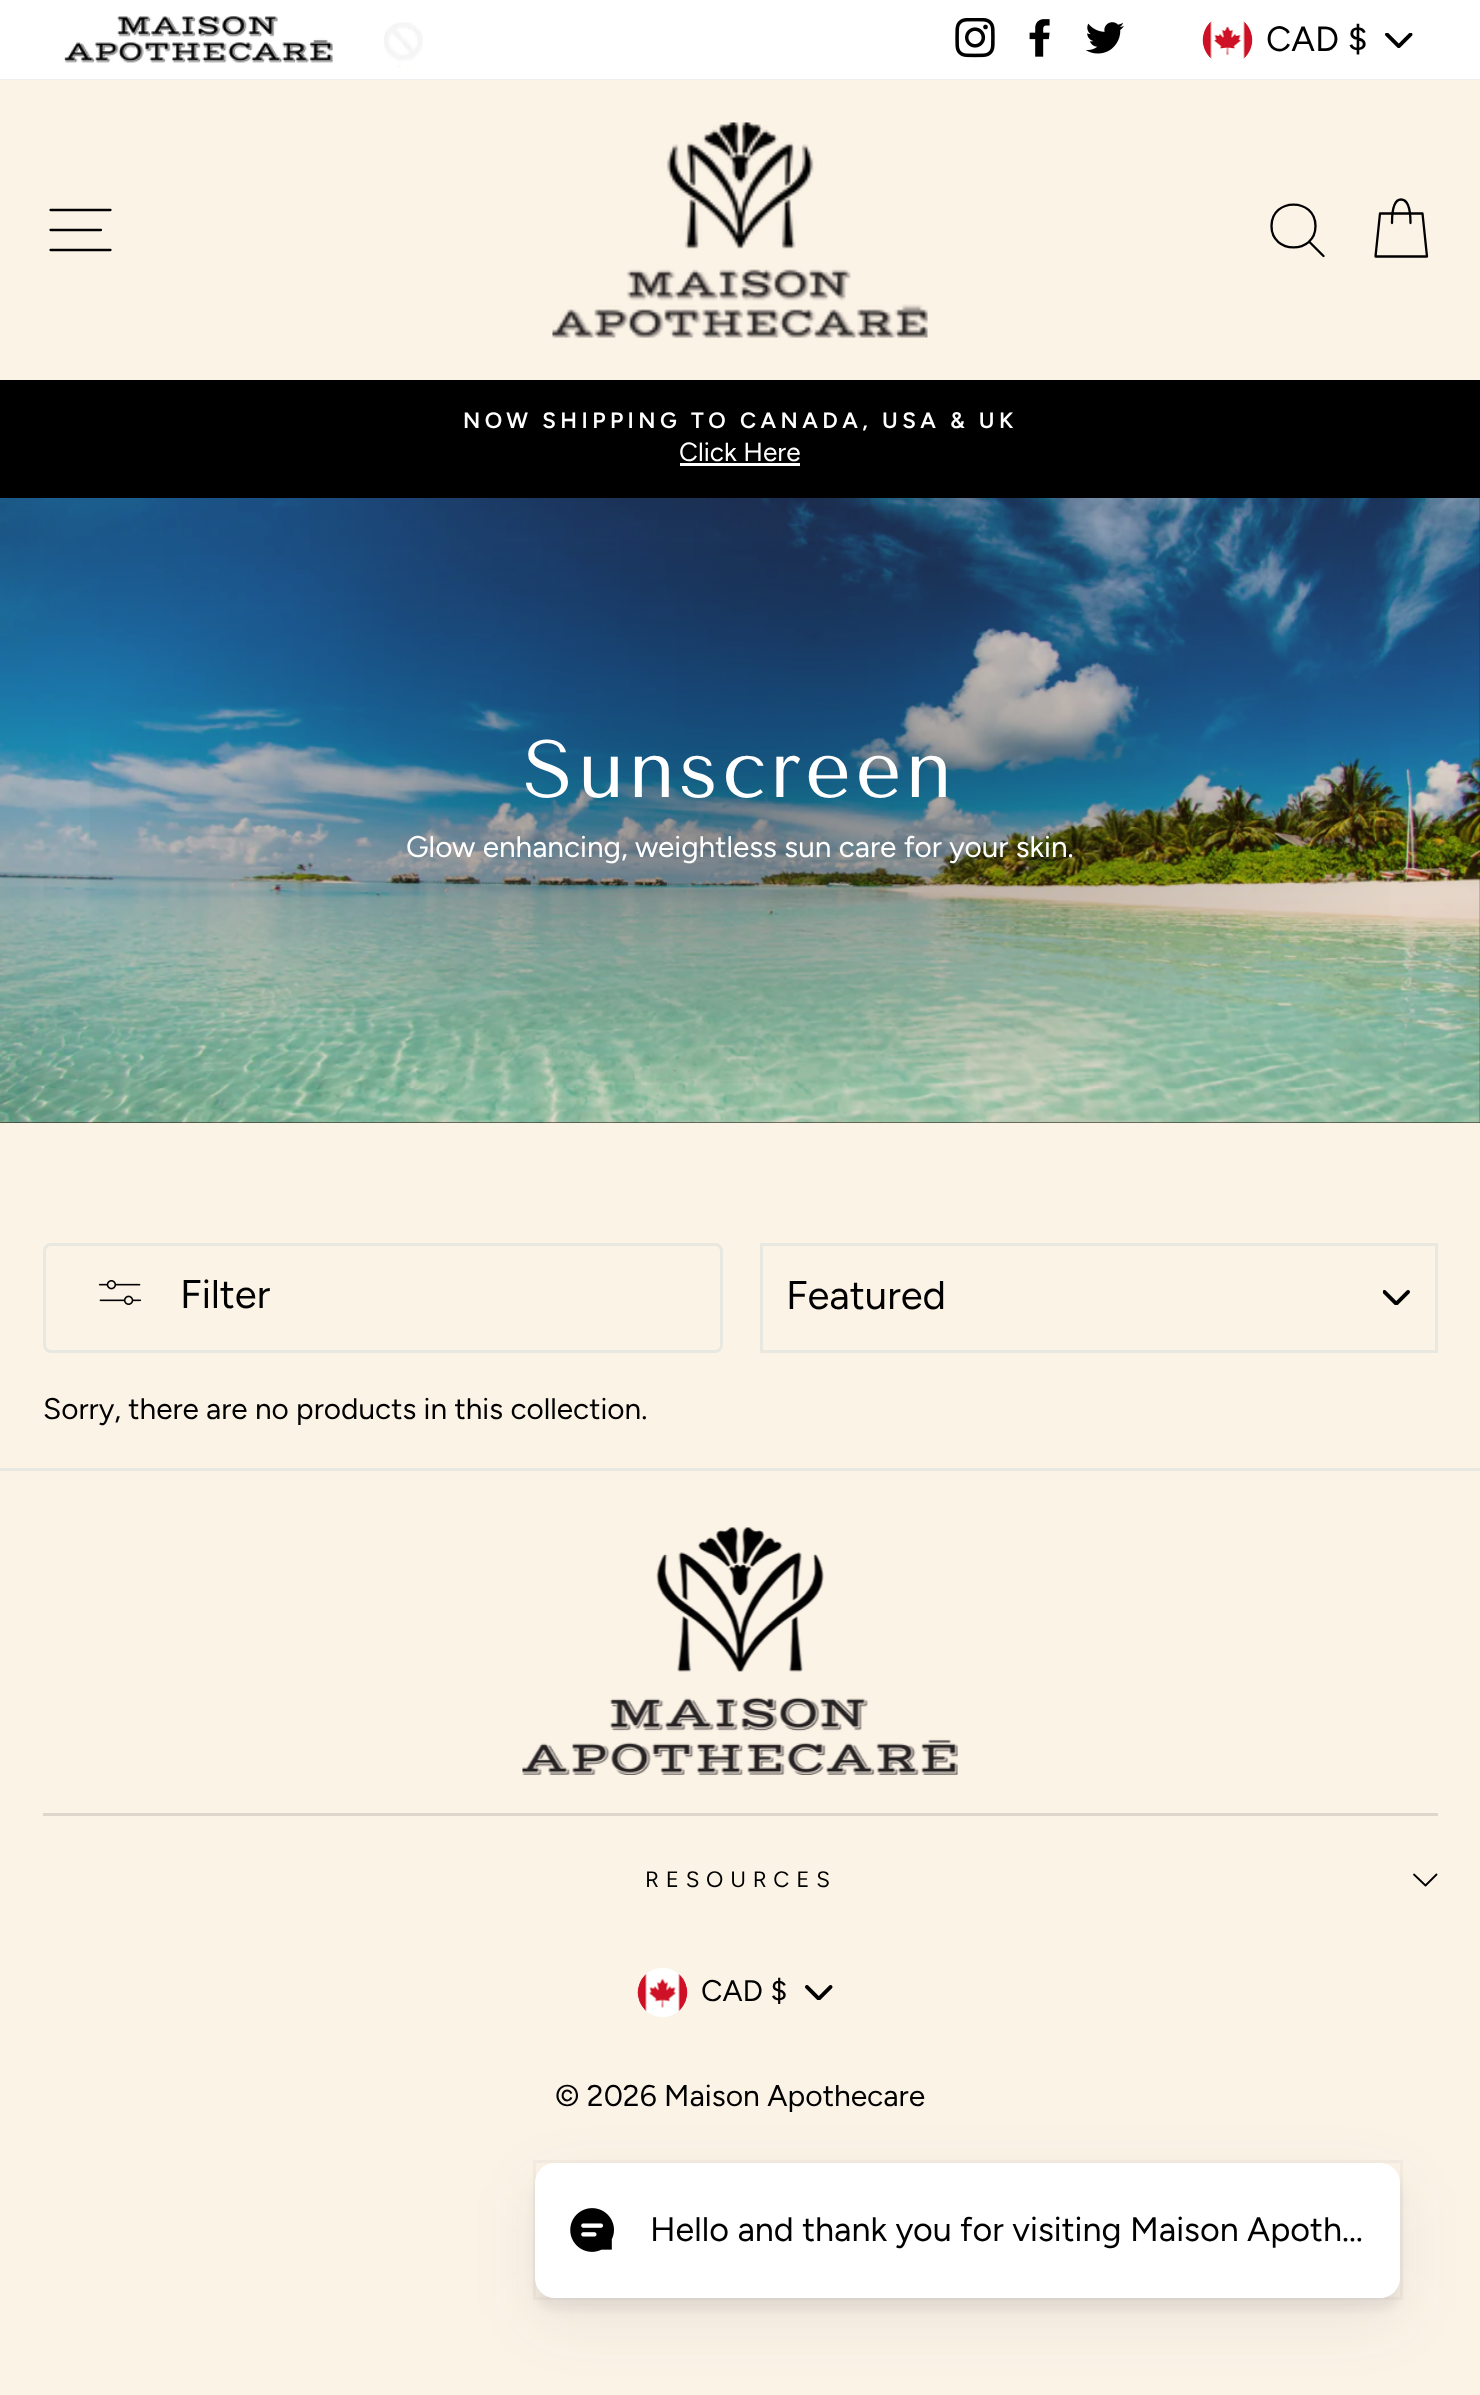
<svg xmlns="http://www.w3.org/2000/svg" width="1480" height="2395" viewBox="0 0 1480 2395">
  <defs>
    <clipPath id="clip1"><rect x="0" y="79" width="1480" height="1"/></clipPath>
    <radialGradient id="g1" gradientUnits="userSpaceOnUse" cx="0" cy="0" r="1" gradientTransform="matrix(1177 0 0 490 740 811)"><stop offset="0" stop-color="rgb(0,0,0)" stop-opacity="0.29"/><stop offset="0.6" stop-color="rgb(0,0,0)" stop-opacity="0"/></radialGradient>
  </defs>
  <rect width="100%" height="100%" fill="rgb(252,243,231)"/>
  <rect x="0" y="0" width="1480" height="80" fill="rgb(255,255,255)"/>
  <image x="63" y="16" width="270" height="47" href="pic1.png"/>
  <image x="384" y="22" width="39" height="46" href="pic2.png"/>
  <image x="955" y="18" width="40" height="40" href="pic3.png"/>
  <image x="1029" y="19" width="21" height="38" href="pic4.png"/>
  <image x="1085" y="22" width="39" height="32" href="pic5.png"/>
  <image x="1385" y="33" width="28" height="15" href="pic6.png"/>
  <image x="1202" y="21" width="51" height="38" href="pic7.png"/>
  <text x="1266" y="51" font-family="Figtree" font-size="35" fill="rgb(0,0,0)">CAD $</text>
  <g clip-path="url(#clip1)">
    <rect x="0" y="80" width="1480" height="300" fill="rgba(0,0,0,0.2)" filter="blur(1px)"/>
  </g>
  <path d="M50.5 210H110.5M50.5 230H101M50.5 250H110.5" fill="none" stroke="rgb(0,0,0)" stroke-width="2.3" stroke-linecap="round" stroke-linejoin="round"/>
  <image x="552" y="122" width="376" height="216" href="pic8.png"/>
  <path d="M1315.5 226C1315.5 254.5 1271.5 254.5 1271.5 226C1271.5 197.5 1315.5 197.5 1315.5 226ZM1323.5 256L1309 241.5" fill="none" stroke="rgb(0,0,0)" stroke-width="2.3" stroke-linecap="round" stroke-linejoin="round"/>
  <path d="M1392 223C1392 204.5 1396 199.5 1401 199.5C1406.5 199.5 1410.5 204.5 1410.5 223M1380 213.5H1422.5L1427 256.5H1375.5Z" fill="none" stroke="rgb(0,0,0)" stroke-width="2.3" stroke-linecap="round" stroke-linejoin="round"/>
  <rect x="0" y="380" width="1480" height="118" fill="rgb(0,0,0)"/>
  <text x="463" y="428" font-family="Figtree" font-size="22.3" font-weight="600" letter-spacing="4.45" fill="rgb(255,255,255)">NOW SHIPPING TO CANADA, USA &amp; UK</text>
  <text x="679" y="461" font-family="Figtree" font-size="26.25" fill="rgb(255,255,255)">Click Here</text>
  <rect x="680" y="463" width="120" height="3" fill="rgb(255,255,255)"/>
  <rect x="0" y="498" width="1480" height="625" fill="rgb(39,26,16)"/>
  <image x="0" y="498" width="1480" height="625" href="pic9.png"/>
  <rect x="90" y="541" width="1300" height="542" fill="url(#g1)"/>
  <text x="523" y="797" font-family="Tenor Sans" font-size="80.75" letter-spacing="4" fill="rgb(255,255,255)">Sunscreen</text>
  <text x="406" y="857" font-family="Figtree" font-size="29.75" fill="rgb(255,255,255)">Glow enhancing, weightless sun care for your skin.</text>
  <rect x="44.5" y="1244.5" width="677" height="107" rx="6.5" fill="none" stroke="rgb(232,232,225)" stroke-width="3"/>
  <image x="98" y="1280" width="44" height="25" href="pic10.png"/>
  <text x="180" y="1308" font-family="Figtree" font-size="40" fill="rgb(0,0,0)">Filter</text>
  <image x="1383" y="1290" width="27" height="15" href="pic11.png"/>
  <rect x="761.5" y="1244.5" width="675" height="107" fill="none" stroke="rgb(232,232,225)" stroke-width="3"/>
  <text x="786" y="1309" font-family="Figtree" font-size="40" fill="rgb(0,0,0)">Featured</text>
  <text x="43" y="1419" font-family="Figtree" font-size="29.75" fill="rgb(0,0,0)">Sorry, there are no products in this collection.</text>
  <rect x="0" y="1468" width="1480" height="3" fill="rgb(232,232,225)"/>
  <image x="522" y="1527" width="436" height="248" href="pic12.png"/>
  <rect x="43" y="1813" width="1395" height="3" fill="rgb(222,214,203)"/>
  <text x="645" y="1887" font-family="Figtree" font-size="22.3" letter-spacing="6.75" fill="rgb(0,0,0)">RESOURCES</text>
  <path d="M1414 1874.5L1425.5 1885.5L1436.5 1874.5" fill="none" stroke="rgb(0,0,0)" stroke-width="1.8" stroke-linecap="round" stroke-linejoin="round"/>
  <image x="805" y="1985" width="28" height="15" href="pic13.png"/>
  <image x="637" y="1967" width="51" height="51" href="pic14.png"/>
  <text x="701" y="2001" font-family="Figtree" font-size="29.75" fill="rgb(0,0,0)">CAD $</text>
  <text x="555" y="2106" font-family="Figtree" font-size="30" fill="rgb(0,0,0)">© 2026 Maison Apothecare</text>
  <rect x="535" y="2183" width="865" height="137" rx="20" fill="rgba(55,63,71,0.08)" filter="blur(31.5px)"/>
  <rect x="535" y="2173" width="865" height="137" rx="20" fill="rgba(55,63,71,0.08)" filter="blur(5px)"/>
  <rect x="534.5" y="2161.5" width="867" height="137" fill="none" stroke="rgba(55,63,71,0.04)" stroke-width="3"/>
  <rect x="535" y="2163" width="865" height="135" rx="20" fill="rgb(255,255,255)"/>
  <image x="570" y="2208" width="44" height="44" href="pic15.png"/>
  <text x="650" y="2241" font-family="Figtree" font-size="34.1" fill="rgb(0,0,0)">Hello and thank you for visiting Maison Apoth…</text>
</svg>
